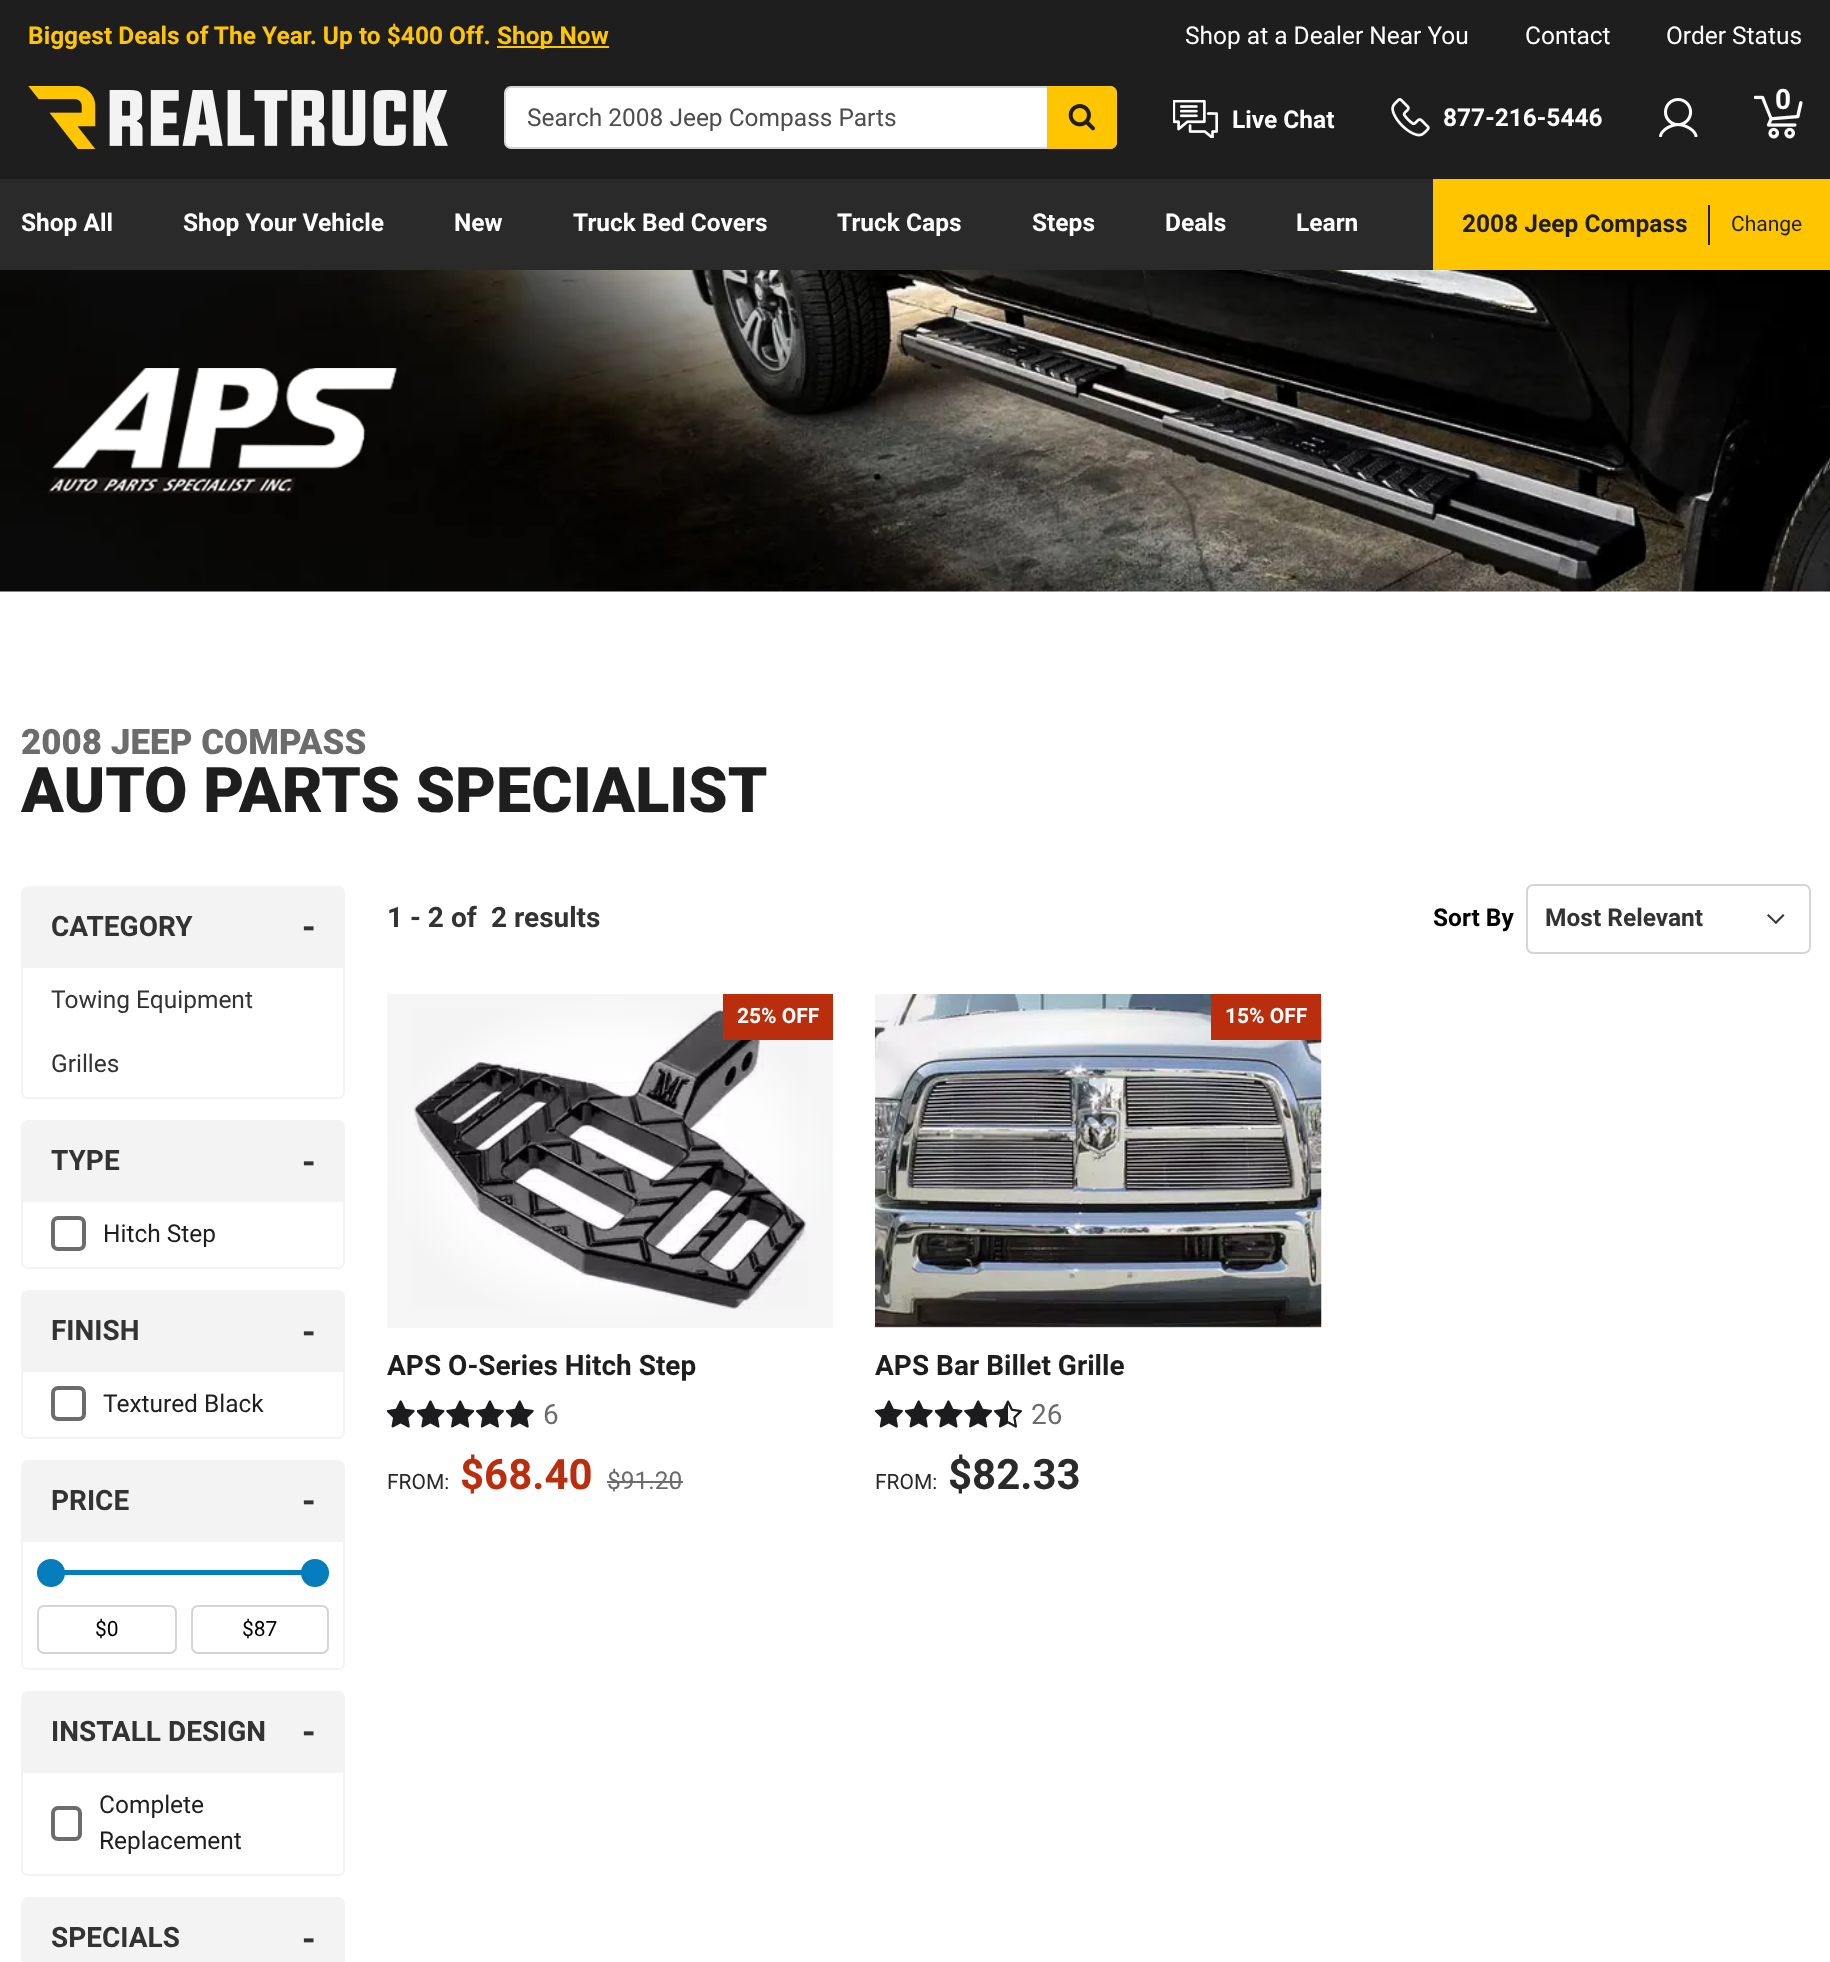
<svg xmlns="http://www.w3.org/2000/svg" width="1830" height="1962" viewBox="0 0 1830 1962">
  <defs>
    <radialGradient id="g1" gradientUnits="userSpaceOnUse" cx="0" cy="0" r="1" gradientTransform="matrix(223 0 0 167 610 1161)"><stop offset="0.5" stop-color="rgb(55,62,62)" stop-opacity="0"/><stop offset="0.74" stop-color="rgb(55,62,62)" stop-opacity="0.01"/><stop offset="1" stop-color="rgb(55,62,62)" stop-opacity="0.05"/></radialGradient>
  </defs>
  <rect width="100%" height="100%" fill="rgb(255,255,255)"/>
  <rect x="0" y="0" width="1830" height="179" fill="rgb(30,30,30)"/>
  <text x="28" y="44" font-family="Roboto" font-size="24.5" font-weight="bold" fill="rgb(255,198,0)">Biggest Deals of The Year. Up to $400 Off.</text>
  <rect x="497" y="46" width="112" height="2" fill="rgb(255,198,0)"/>
  <text x="497" y="44" font-family="Roboto" font-size="24.5" font-weight="bold" fill="rgb(255,198,0)">Shop Now</text>
  <g font-family="Roboto" font-size="24.5" fill="rgb(255,255,255)">
    <text x="1185" y="44">Shop at a Dealer Near You</text>
    <text x="1525" y="44">Contact</text>
    <text x="1666" y="44">Order Status</text>
  </g>
  <image x="28" y="86" width="420" height="63" href="pic1.png"/>
  <rect x="505" y="87" width="611" height="61" rx="6" fill="rgb(255,255,255)" stroke="rgb(213,213,213)" stroke-width="2"/>
  <text x="527" y="126" font-family="Roboto" font-size="24.5" fill="rgb(77,77,77)">Search 2008 Jeep Compass Parts</text>
  <path d="M1048 87H1110C1113.5 87 1116 89.5 1116 93V142C1116 145.5 1113.5 148 1110 148H1048Z" fill="rgb(255,198,0)" stroke="rgb(255,198,0)" stroke-width="2"/>
  <image x="1068" y="104" width="27" height="27" href="pic2.png"/>
  <image x="1173" y="100" width="45" height="38" href="pic3.png"/>
  <text x="1232" y="128" font-family="Roboto" font-size="24.5" font-weight="bold" fill="rgb(255,255,255)">Live Chat</text>
  <image x="1391" y="98" width="39" height="39" href="pic4.png"/>
  <text x="1443" y="126" font-family="Roboto" font-size="24.5" font-weight="bold" fill="rgb(255,255,255)">877-216-5446</text>
  <image x="1659" y="98" width="39" height="39" href="pic5.png"/>
  <image x="1754" y="95" width="49" height="44" href="pic6.png"/>
  <text x="1775" y="109" font-family="Roboto" font-size="28" font-weight="bold" fill="rgb(255,255,255)">0</text>
  <rect x="0" y="179" width="1433" height="91" fill="rgb(42,42,42)"/>
  <g font-family="Roboto" font-size="24.5" font-weight="bold" fill="rgb(255,255,255)">
    <text x="21" y="231">Shop All</text>
    <text x="183" y="231">Shop Your Vehicle</text>
    <text x="454" y="231">New</text>
    <text x="573" y="231">Truck Bed Covers</text>
    <text x="837" y="231">Truck Caps</text>
    <text x="1032" y="231">Steps</text>
    <text x="1165" y="231">Deals</text>
    <text x="1296" y="231">Learn</text>
  </g>
  <rect x="1433" y="179" width="397" height="91" fill="rgb(255,198,0)"/>
  <text x="1462" y="232" font-family="Roboto" font-size="24.5" font-weight="bold" fill="rgb(30,30,30)">2008 Jeep Compass</text>
  <rect x="1708" y="205" width="2" height="40" fill="rgb(30,30,30)"/>
  <text x="1731" y="231" font-family="Roboto" font-size="21" fill="rgb(30,30,30)">Change</text>
  <image x="0" y="270" width="1830" height="322" href="pic7.png"/>
  <image x="47" y="368" width="350" height="126" href="pic8.png"/>
  <text x="21" y="754" font-family="Roboto" font-size="35" font-weight="900" fill="rgb(108,108,108)">2008 JEEP COMPASS</text>
  <text x="21" y="812" font-family="Roboto" font-size="63" font-weight="900" fill="rgb(30,30,30)">AUTO PARTS SPECIALIST</text>
  <rect x="22" y="887" width="322" height="211" rx="6" fill="none" stroke="rgb(243,243,243)" stroke-width="2"/>
  <path d="M28 887H338C341 887 343 889 343 892V968H23V892C23 889 25 887 28 887Z" fill="rgb(243,243,243)"/>
  <text x="51" y="936" font-family="Roboto" font-size="28" font-weight="bold" fill="rgb(51,51,51)">CATEGORY</text>
  <text x="302" y="939" font-family="Roboto" font-size="35" font-weight="bold" fill="rgb(51,51,51)">-</text>
  <path d="M23 968H343V1092C343 1095 341 1097 338 1097H28C25 1097 23 1095 23 1092Z" fill="rgb(255,255,255)"/>
  <g font-family="Roboto" font-size="24.5" fill="rgb(51,51,51)">
    <text x="51" y="1008">Towing Equipment</text>
    <text x="51" y="1072">Grilles</text>
  </g>
  <rect x="22" y="1121" width="322" height="147" rx="6" fill="none" stroke="rgb(243,243,243)" stroke-width="2"/>
  <path d="M28 1122H338C341 1122 343 1124 343 1127V1202H23V1127C23 1124 25 1122 28 1122Z" fill="rgb(243,243,243)"/>
  <text x="51" y="1170" font-family="Roboto" font-size="28" font-weight="bold" fill="rgb(51,51,51)">TYPE</text>
  <text x="302" y="1174" font-family="Roboto" font-size="35" font-weight="bold" fill="rgb(51,51,51)">-</text>
  <path d="M23 1202H343V1262C343 1265 341 1267 338 1267H28C25 1267 23 1265 23 1262Z" fill="rgb(255,255,255)"/>
  <rect x="53" y="1218" width="31" height="31" rx="5" fill="none" stroke="rgb(108,108,108)" stroke-width="4"/>
  <text x="103" y="1242" font-family="Roboto" font-size="24.5" fill="rgb(30,30,30)">Hitch Step</text>
  <rect x="22" y="1291" width="322" height="147" rx="6" fill="none" stroke="rgb(243,243,243)" stroke-width="2"/>
  <path d="M28 1292H338C341 1292 343 1294 343 1297V1372H23V1297C23 1294 25 1292 28 1292Z" fill="rgb(243,243,243)"/>
  <text x="51" y="1340" font-family="Roboto" font-size="28" font-weight="bold" fill="rgb(51,51,51)">FINISH</text>
  <text x="302" y="1344" font-family="Roboto" font-size="35" font-weight="bold" fill="rgb(51,51,51)">-</text>
  <path d="M23 1372H343V1432C343 1435 341 1437 338 1437H28C25 1437 23 1435 23 1432Z" fill="rgb(255,255,255)"/>
  <rect x="53" y="1388" width="31" height="31" rx="5" fill="none" stroke="rgb(108,108,108)" stroke-width="4"/>
  <text x="103" y="1412" font-family="Roboto" font-size="24.5" fill="rgb(30,30,30)">Textured Black</text>
  <rect x="22" y="1461" width="322" height="208" rx="6" fill="none" stroke="rgb(243,243,243)" stroke-width="2"/>
  <path d="M28 1461H338C341 1461 343 1463 343 1466V1542H23V1466C23 1463 25 1461 28 1461Z" fill="rgb(243,243,243)"/>
  <text x="51" y="1510" font-family="Roboto" font-size="28" font-weight="bold" fill="rgb(51,51,51)">PRICE</text>
  <text x="302" y="1513" font-family="Roboto" font-size="35" font-weight="bold" fill="rgb(51,51,51)">-</text>
  <path d="M23 1542H343V1663C343 1666 341 1668 338 1668H28C25 1668 23 1666 23 1663Z" fill="rgb(255,255,255)"/>
  <rect x="37" y="1570" width="292" height="5" rx="2.5" fill="rgb(5,125,188)"/>
  <circle cx="51" cy="1573" r="13" fill="rgb(5,125,188)" stroke="rgb(5,125,188)" stroke-width="2"/>
  <circle cx="315" cy="1573" r="13" fill="rgb(5,125,188)" stroke="rgb(5,125,188)" stroke-width="2"/>
  <rect x="38" y="1606" width="138" height="47" rx="6" fill="none" stroke="rgb(213,213,213)" stroke-width="2"/>
  <text x="95" y="1636" font-family="Roboto" font-size="21" fill="rgb(0,0,0)">$0</text>
  <rect x="192" y="1606" width="136" height="47" rx="6" fill="none" stroke="rgb(213,213,213)" stroke-width="2"/>
  <text x="242" y="1636" font-family="Roboto" font-size="21" fill="rgb(0,0,0)">$87</text>
  <rect x="22" y="1692" width="322" height="183" rx="6" fill="none" stroke="rgb(243,243,243)" stroke-width="2"/>
  <path d="M28 1692H338C341 1692 343 1694 343 1697V1773H23V1697C23 1694 25 1692 28 1692Z" fill="rgb(243,243,243)"/>
  <text x="51" y="1741" font-family="Roboto" font-size="28" font-weight="bold" fill="rgb(51,51,51)">INSTALL DESIGN</text>
  <text x="302" y="1744" font-family="Roboto" font-size="35" font-weight="bold" fill="rgb(51,51,51)">-</text>
  <path d="M23 1773H343V1869C343 1872 341 1874 338 1874H28C25 1874 23 1872 23 1869Z" fill="rgb(255,255,255)"/>
  <rect x="53" y="1808" width="27" height="31" rx="5" fill="none" stroke="rgb(108,108,108)" stroke-width="4"/>
  <g font-family="Roboto" font-size="24.5" fill="rgb(30,30,30)">
    <text>
      <tspan x="99" y="1813">Complete</tspan>
      <tspan x="99" y="1849">Replacement</tspan>
    </text>
  </g>
  <rect x="22" y="1898" width="322" height="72" rx="6" fill="none" stroke="rgb(243,243,243)" stroke-width="2"/>
  <path d="M28 1899H338C341 1899 343 1901 343 1904V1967H23V1904C23 1901 25 1899 28 1899Z" fill="rgb(243,243,243)"/>
  <text x="51" y="1947" font-family="Roboto" font-size="28" font-weight="bold" fill="rgb(51,51,51)">SPECIALS</text>
  <text x="302" y="1951" font-family="Roboto" font-size="35" font-weight="bold" fill="rgb(51,51,51)">-</text>
  <g font-family="Roboto" font-size="28" font-weight="bold" fill="rgb(51,51,51)">
    <text x="387" y="927">1 - 2 of</text>
    <text x="491" y="927">2 results</text>
  </g>
  <text x="1433" y="926" font-family="Roboto" font-size="24.5" font-weight="bold" fill="rgb(0,0,0)">Sort By</text>
  <rect x="1527" y="885" width="283" height="68" rx="6" fill="none" stroke="rgb(213,213,213)" stroke-width="2"/>
  <text x="1545" y="926" font-family="Roboto" font-size="24.5" font-weight="bold" fill="rgb(51,51,51)">Most Relevant</text>
  <path d="M1774.5 922.5L1783 914L1784.5 915.5L1776 924Z" fill="rgb(51,51,51)"/>
  <path d="M1767 915.5L1768.5 914L1777 922.5L1776 924Z" fill="rgb(51,51,51)"/>
  <image x="413" y="1009" width="394" height="300" href="pic9.png"/>
  <rect x="387" y="994" width="446" height="334" fill="url(#g1)"/>
  <rect x="723" y="994" width="110" height="46" fill="rgb(186,45,13)"/>
  <text x="737" y="1023" font-family="Roboto" font-size="21" font-weight="bold" fill="rgb(255,255,255)">25% OFF</text>
  <text x="387" y="1375" font-family="Roboto" font-size="28" font-weight="bold" fill="rgb(30,30,30)">APS O-Series Hitch Step</text>
  <image x="387" y="1400" width="28" height="28" href="pic10.png"/>
  <image x="417" y="1400" width="28" height="28" href="pic11.png"/>
  <image x="446" y="1400" width="28" height="28" href="pic12.png"/>
  <image x="476" y="1400" width="28" height="28" href="pic13.png"/>
  <image x="506" y="1400" width="28" height="28" href="pic10.png"/>
  <text x="543" y="1424" font-family="Roboto" font-size="28" fill="rgb(108,108,108)">6</text>
  <text x="387" y="1489" font-family="Roboto" font-size="21" fill="rgb(42,42,42)">FROM:</text>
  <text x="460" y="1489" font-family="Roboto" font-size="42" font-weight="bold" fill="rgb(186,45,13)">$68.40</text>
  <text x="607" y="1489" font-family="Roboto" font-size="24.5" fill="rgb(108,108,108)">$91.20</text>
  <rect x="607" y="1481" width="76" height="2" fill="rgb(108,108,108)"/>
  <image x="875" y="994" width="447" height="334" href="pic14.png"/>
  <rect x="1211" y="994" width="110" height="46" fill="rgb(186,45,13)"/>
  <text x="1225" y="1023" font-family="Roboto" font-size="21" font-weight="bold" fill="rgb(255,255,255)">15% OFF</text>
  <text x="875" y="1375" font-family="Roboto" font-size="28" font-weight="bold" fill="rgb(30,30,30)">APS Bar Billet Grille</text>
  <image x="875" y="1400" width="28" height="28" href="pic13.png"/>
  <image x="905" y="1400" width="28" height="28" href="pic10.png"/>
  <image x="935" y="1400" width="28" height="28" href="pic11.png"/>
  <image x="964" y="1400" width="28" height="28" href="pic12.png"/>
  <image x="994" y="1400" width="28" height="28" href="pic15.png"/>
  <text x="1031" y="1424" font-family="Roboto" font-size="28" fill="rgb(108,108,108)">26</text>
  <text x="875" y="1489" font-family="Roboto" font-size="21" fill="rgb(42,42,42)">FROM:</text>
  <text x="948" y="1489" font-family="Roboto" font-size="42" font-weight="bold" fill="rgb(42,42,42)">$82.33</text>
</svg>
